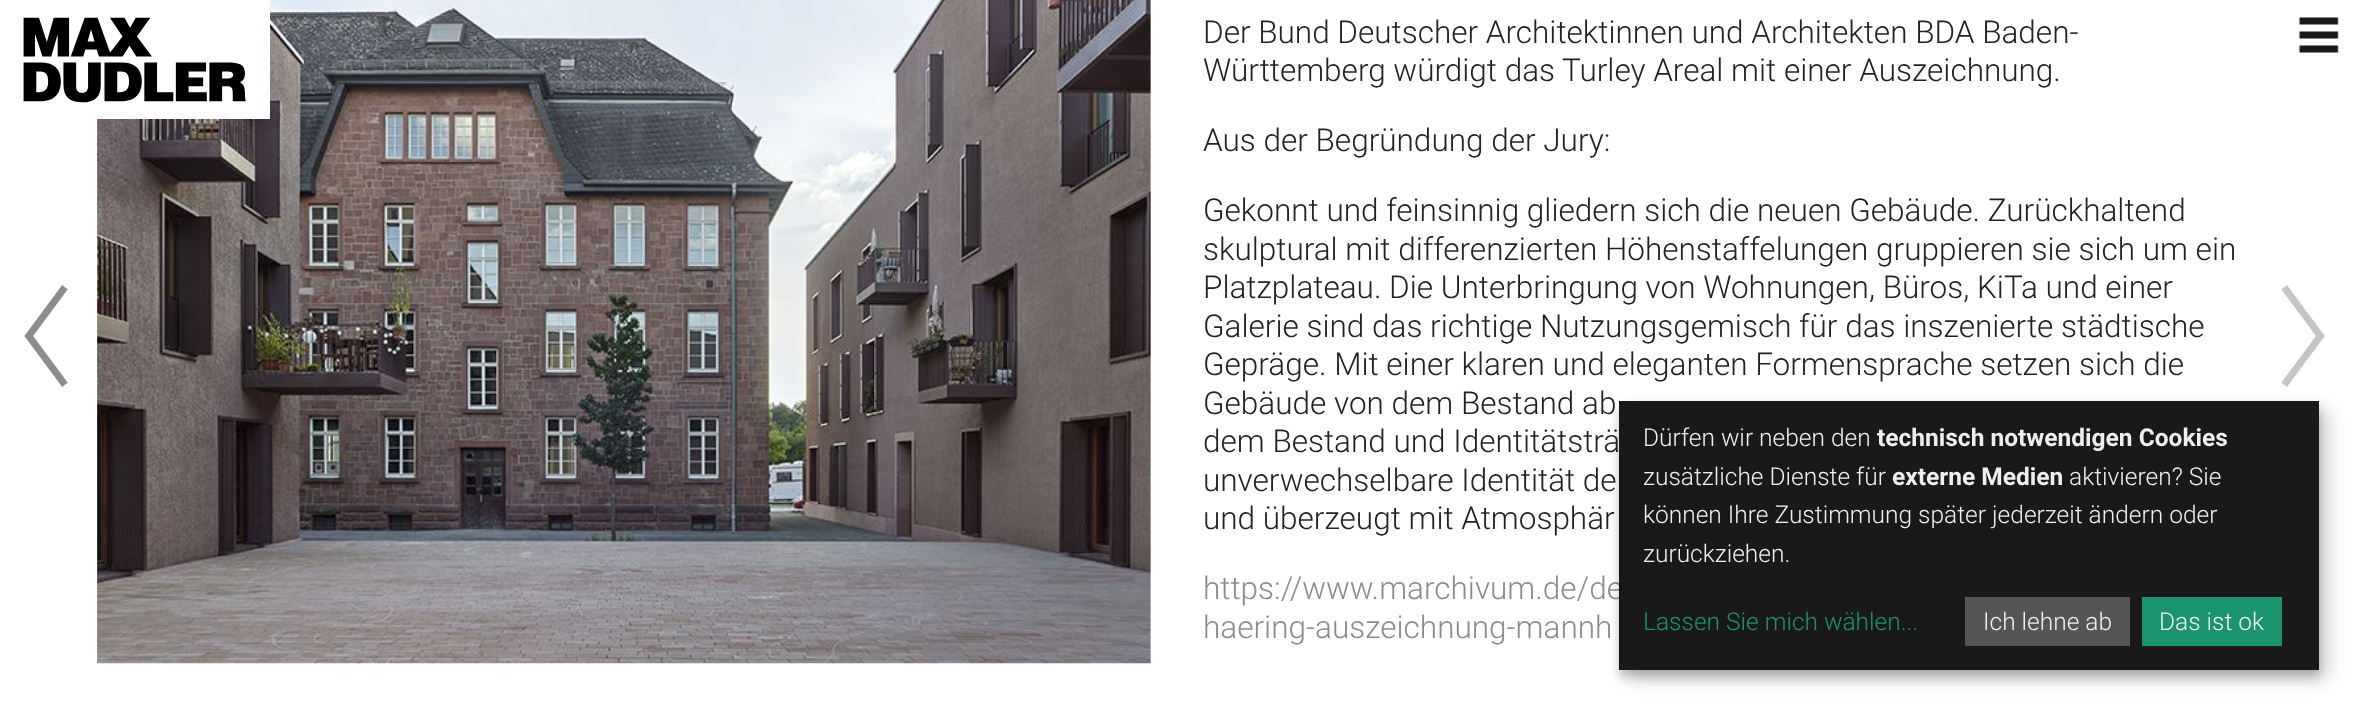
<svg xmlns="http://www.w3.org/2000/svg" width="2353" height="705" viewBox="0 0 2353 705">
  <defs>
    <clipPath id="clip1"><path d="M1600 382H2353V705H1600ZM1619 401H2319V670H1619Z" clip-rule="evenodd"/></clipPath>
    <clipPath id="clip2"><path d="M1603 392H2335V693H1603ZM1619 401H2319V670H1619Z" clip-rule="evenodd"/></clipPath>
  </defs>
  <rect width="100%" height="100%" fill="rgb(255,255,255)"/>
  <image x="97" y="0" width="1054" height="664" href="pic4.png"/>
  <rect x="97" y="0" width="173" height="119" fill="rgb(255,255,255)"/>
  <image x="23" y="17" width="223" height="86" href="pic1.png"/>
  <image x="2284" y="0" width="69" height="70" href="pic2.png"/>
  <image x="24" y="285" width="44" height="102" href="pic3.png"/>
  <g font-family="Roboto" font-size="31.5" font-weight="300" fill="rgb(34,34,34)">
    <text>
      <tspan x="1203" y="43">Der Bund Deutscher Architektinnen und Architekten BDA Baden-</tspan>
      <tspan x="1203" y="81">Württemberg würdigt das Turley Areal mit einer Auszeichnung.</tspan>
    </text>
    <text x="1203" y="151">Aus der Begründung der Jury:</text>
    <text>
      <tspan x="1203" y="221">Gekonnt und feinsinnig gliedern sich die neuen Gebäude. Zurückhaltend</tspan>
      <tspan x="1203" y="260">skulptural mit differenzierten Höhenstaffelungen gruppieren sie sich um ein</tspan>
      <tspan x="1203" y="298">Platzplateau. Die Unterbringung von Wohnungen, Büros, KiTa und einer</tspan>
      <tspan x="1203" y="337">Galerie sind das richtige Nutzungsgemisch für das inszenierte städtische</tspan>
      <tspan x="1203" y="375">Gepräge. Mit einer klaren und eleganten Formensprache setzen sich die</tspan>
      <tspan x="1203" y="414">Gebäude von dem Bestand ab</tspan>
      <tspan x="1203" y="452">dem Bestand und Identitätsträ</tspan>
      <tspan x="1203" y="491">unverwechselbare Identität de</tspan>
      <tspan x="1203" y="529">und überzeugt mit Atmosphär</tspan>
    </text>
  </g>
  <g font-family="Roboto" font-size="31.5" font-weight="300" fill="rgb(140,140,140)">
    <text>
      <tspan x="1203" y="599">https://www.marchivum.de/de</tspan>
      <tspan x="1203" y="638">haering-auszeichnung-mannh</tspan>
    </text>
  </g>
  <image x="2281" y="285" width="44" height="102" href="pic5.png"/>
  <g clip-path="url(#clip1)">
    <rect x="1628" y="410" width="700" height="269" fill="rgba(0,0,0,0.19)" filter="blur(9px)"/>
  </g>
  <g clip-path="url(#clip2)">
    <rect x="1619" y="408" width="700" height="269" fill="rgba(0,0,0,0.2)" filter="blur(5px)"/>
  </g>
  <rect x="1619" y="401" width="700" height="269" fill="rgba(0,0,0,0.9)"/>
  <text x="1643" y="446" font-family="Roboto" font-size="24.5" font-weight="300" fill="rgb(238,238,238)">Dürfen wir neben den</text>
  <text x="1877" y="446" font-family="Roboto" font-size="24.5" font-weight="bold" fill="rgb(238,238,238)">technisch notwendigen Cookies</text>
  <text x="1643" y="485" font-family="Roboto" font-size="24.5" font-weight="300" fill="rgb(238,238,238)">zusätzliche Dienste für</text>
  <text x="1892" y="485" font-family="Roboto" font-size="24.5" font-weight="bold" fill="rgb(238,238,238)">externe Medien</text>
  <g font-family="Roboto" font-size="24.5" font-weight="300" fill="rgb(238,238,238)">
    <text x="2069" y="485">aktivieren? Sie</text>
    <text>
      <tspan x="1643" y="523">können Ihre Zustimmung später jederzeit ändern oder</tspan>
      <tspan x="1643" y="562">zurückziehen.</tspan>
    </text>
  </g>
  <text x="1643" y="630" font-family="Roboto" font-size="24.5" font-weight="300" fill="rgb(26,147,111)">Lassen Sie mich wählen...</text>
  <rect x="1965" y="597" width="165" height="49" fill="rgb(85,85,85)"/>
  <text x="1983" y="630" font-family="Roboto" font-size="24.5" font-weight="300" fill="rgb(238,238,238)">Ich lehne ab</text>
  <rect x="2142" y="597" width="140" height="49" fill="rgb(26,147,111)"/>
  <text x="2159" y="630" font-family="Roboto" font-size="24.5" font-weight="300" fill="rgb(238,238,238)">Das ist ok</text>
</svg>
